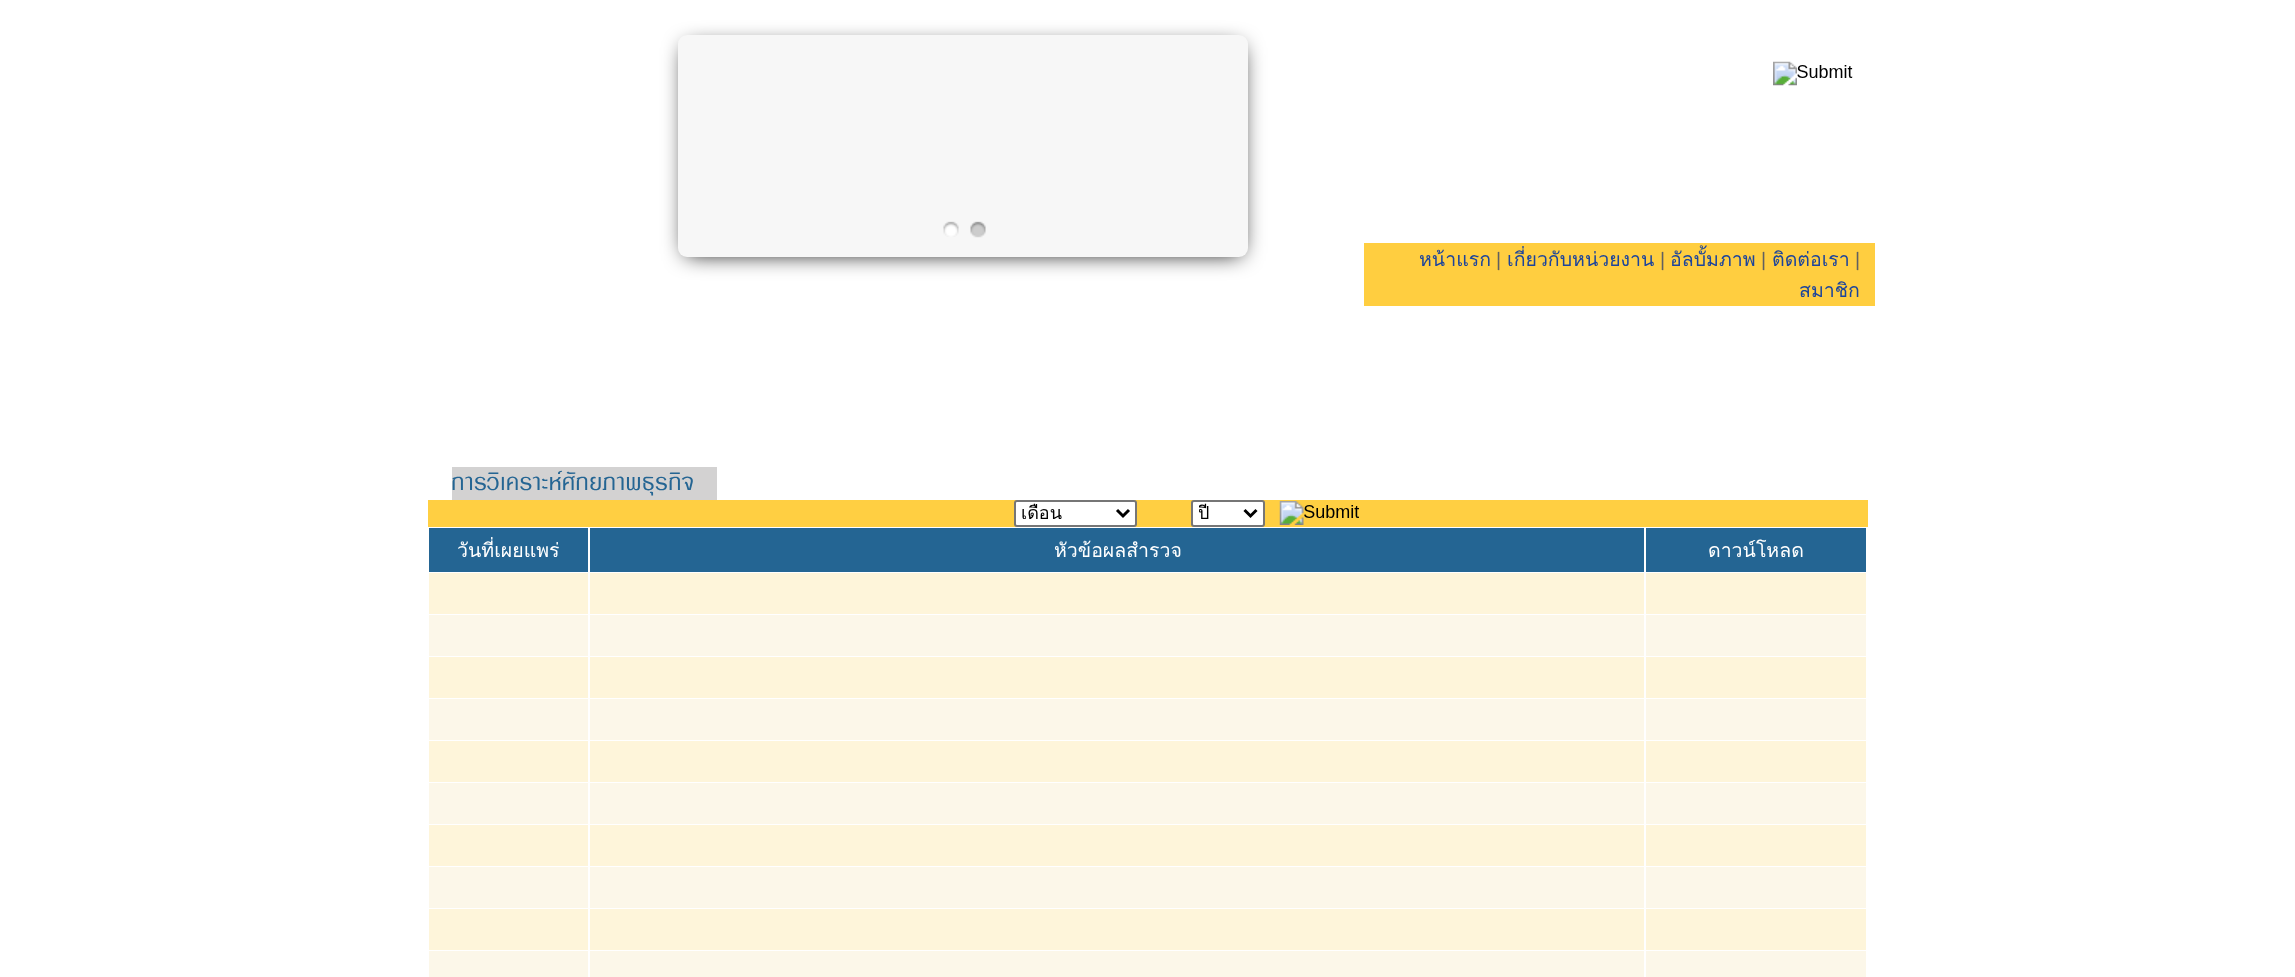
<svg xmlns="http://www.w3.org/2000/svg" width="2295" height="977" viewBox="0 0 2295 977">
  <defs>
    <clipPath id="clip1"><rect x="1022" y="501" width="90" height="24"/></clipPath>
    <clipPath id="clip2"><rect x="1199" y="501" width="40" height="24"/></clipPath>
  </defs>
  <rect width="100%" height="100%" fill="rgb(255,255,255)"/>
  <rect x="686" y="47" width="555" height="207" rx="1.5" fill="rgb(0,0,0)" filter="blur(11px)"/>
  <rect x="678" y="35" width="570" height="222" rx="9" fill="rgb(247,247,247)"/>
  <image x="943" y="221" width="16" height="16" href="pic1.png"/>
  <image x="970" y="221" width="16" height="17" href="pic2.png"/>
  <image x="1773" y="61" width="80" height="25" href="pic3.png"/>
  <rect x="1364" y="243" width="511" height="63" fill="rgb(255,206,64)"/>
  <text x="1419" y="266" font-family="Loma" font-size="19.5" fill="rgb(28,68,156)">หน้าแรก</text>
  <text x="1496" y="266" font-family="Liberation Sans" font-size="19.5" fill="rgb(96,96,96)">|</text>
  <text x="1507" y="266" font-family="Loma" font-size="19.5" fill="rgb(28,68,156)">เกี่ยวกับหน่วยงาน</text>
  <text x="1660" y="266" font-family="Liberation Sans" font-size="19.5" fill="rgb(96,96,96)">|</text>
  <text x="1670" y="266" font-family="Loma" font-size="19.5" fill="rgb(28,68,156)">อัลบั้มภาพ</text>
  <text x="1761" y="266" font-family="Liberation Sans" font-size="19.5" fill="rgb(96,96,96)">|</text>
  <text x="1772" y="266" font-family="Loma" font-size="19.5" fill="rgb(28,68,156)">ติดต่อเรา</text>
  <text x="1855" y="266" font-family="Liberation Sans" font-size="19.5" fill="rgb(96,96,96)">|</text>
  <text x="1799" y="297" font-family="Loma" font-size="19.5" fill="rgb(28,68,156)">สมาชิก</text>
  <rect x="452" y="467" width="265" height="33" fill="rgb(211,210,210)"/>
  <text x="451" y="490" font-family="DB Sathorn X" font-size="31.5" fill="rgb(36,101,147)">การวิเคราะห์ศักยภาพธุรกิจ</text>
  <rect x="428" y="500" width="1440" height="27" fill="rgb(255,207,66)"/>
  <rect x="1015" y="501" width="121" height="25" rx="2" fill="rgb(255,255,255)" stroke="rgb(118,118,118)" stroke-width="2"/>
  <path d="M1117 510L1123 516L1129 510" fill="none" stroke="rgb(0,0,0)" stroke-width="3"/>
  <g clip-path="url(#clip1)">
    <text x="1021" y="519" font-family="Loma" font-size="18" fill="rgb(0,0,0)">เดือน</text>
  </g>
  <rect x="1192" y="501" width="72" height="25" rx="2" fill="rgb(255,255,255)" stroke="rgb(118,118,118)" stroke-width="2"/>
  <path d="M1244.5 510L1250.5 516L1256.5 510" fill="none" stroke="rgb(0,0,0)" stroke-width="3"/>
  <g clip-path="url(#clip2)">
    <text x="1198" y="519" font-family="Loma" font-size="18" fill="rgb(0,0,0)">ปี</text>
  </g>
  <image x="1279" y="501" width="80" height="24" href="pic4.png"/>
  <rect x="429" y="528" width="159" height="44" fill="rgb(36,101,147)"/>
  <text x="457" y="557" font-family="Loma" font-size="19.5" fill="rgb(255,255,255)">วันที่เผยแพร่</text>
  <rect x="590" y="528" width="1054" height="44" fill="rgb(36,101,147)"/>
  <text x="1054" y="557" font-family="Loma" font-size="19.5" fill="rgb(255,255,255)">หัวข้อผลสำรวจ</text>
  <rect x="1646" y="528" width="220" height="44" fill="rgb(36,101,147)"/>
  <text x="1708" y="557" font-family="Loma" font-size="19.5" fill="rgb(255,255,255)">ดาวน์โหลด</text>
  <rect x="429" y="573" width="159" height="41" fill="rgb(254,245,218)"/>
  <rect x="590" y="573" width="1054" height="41" fill="rgb(254,245,218)"/>
  <rect x="1646" y="573" width="220" height="41" fill="rgb(254,245,218)"/>
  <rect x="429" y="615" width="159" height="41" fill="rgb(252,247,233)"/>
  <rect x="590" y="615" width="1054" height="41" fill="rgb(252,247,233)"/>
  <rect x="1646" y="615" width="220" height="41" fill="rgb(252,247,233)"/>
  <rect x="429" y="657" width="159" height="41" fill="rgb(254,245,218)"/>
  <rect x="590" y="657" width="1054" height="41" fill="rgb(254,245,218)"/>
  <rect x="1646" y="657" width="220" height="41" fill="rgb(254,245,218)"/>
  <rect x="429" y="699" width="159" height="41" fill="rgb(252,247,233)"/>
  <rect x="590" y="699" width="1054" height="41" fill="rgb(252,247,233)"/>
  <rect x="1646" y="699" width="220" height="41" fill="rgb(252,247,233)"/>
  <rect x="429" y="741" width="159" height="41" fill="rgb(254,245,218)"/>
  <rect x="590" y="741" width="1054" height="41" fill="rgb(254,245,218)"/>
  <rect x="1646" y="741" width="220" height="41" fill="rgb(254,245,218)"/>
  <rect x="429" y="783" width="159" height="41" fill="rgb(252,247,233)"/>
  <rect x="590" y="783" width="1054" height="41" fill="rgb(252,247,233)"/>
  <rect x="1646" y="783" width="220" height="41" fill="rgb(252,247,233)"/>
  <rect x="429" y="825" width="159" height="41" fill="rgb(254,245,218)"/>
  <rect x="590" y="825" width="1054" height="41" fill="rgb(254,245,218)"/>
  <rect x="1646" y="825" width="220" height="41" fill="rgb(254,245,218)"/>
  <rect x="429" y="867" width="159" height="41" fill="rgb(252,247,233)"/>
  <rect x="590" y="867" width="1054" height="41" fill="rgb(252,247,233)"/>
  <rect x="1646" y="867" width="220" height="41" fill="rgb(252,247,233)"/>
  <rect x="429" y="909" width="159" height="41" fill="rgb(254,245,218)"/>
  <rect x="590" y="909" width="1054" height="41" fill="rgb(254,245,218)"/>
  <rect x="1646" y="909" width="220" height="41" fill="rgb(254,245,218)"/>
  <rect x="429" y="951" width="159" height="26" fill="rgb(252,247,233)"/>
  <rect x="590" y="951" width="1054" height="26" fill="rgb(252,247,233)"/>
  <rect x="1646" y="951" width="220" height="26" fill="rgb(252,247,233)"/>
</svg>
